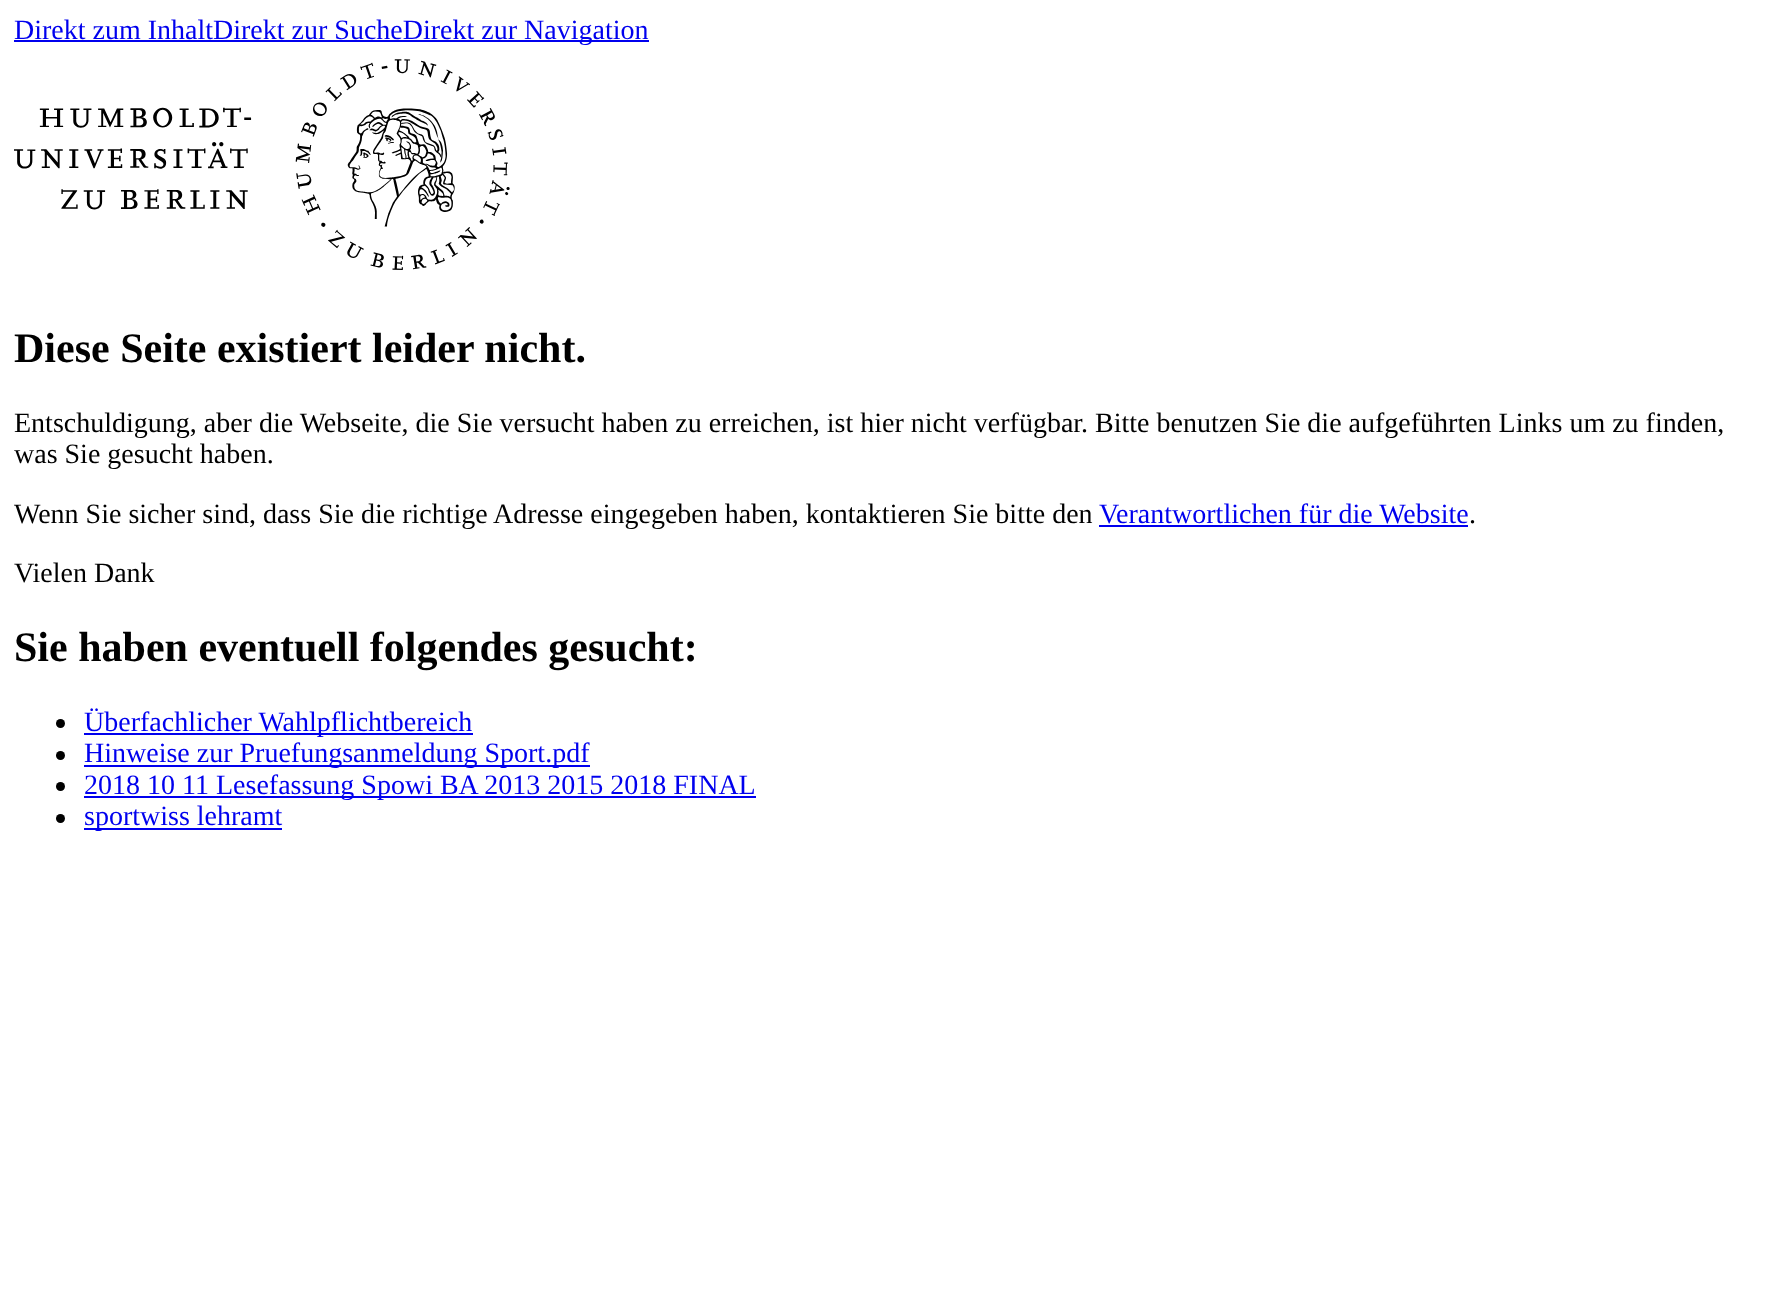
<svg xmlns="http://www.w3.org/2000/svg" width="1781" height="1294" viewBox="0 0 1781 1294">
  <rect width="100%" height="100%" fill="rgb(255,255,255)"/>
  <rect x="14" y="40" width="635" height="2" fill="rgb(0,0,238)"/>
  <text x="14" y="39" font-family="Liberation Serif" font-size="28" fill="rgb(0,0,238)">Direkt zum InhaltDirekt zur SucheDirekt zur Navigation</text>
  <image x="14" y="59" width="496" height="211" href="pic1.png"/>
  <text x="14" y="362" font-family="Liberation Serif" font-size="42" font-weight="bold" fill="rgb(0,0,0)">Diese Seite existiert leider nicht.</text>
  <g font-family="Liberation Serif" font-size="28" fill="rgb(0,0,0)">
    <text>
      <tspan x="14" y="432">Entschuldigung, aber die Webseite, die Sie versucht haben zu erreichen, ist hier nicht verfügbar. Bitte benutzen Sie die aufgeführten Links um zu finden,</tspan>
      <tspan x="14" y="463">was Sie gesucht haben.</tspan>
    </text>
    <text x="14" y="523">Wenn Sie sicher sind, dass Sie die richtige Adresse eingegeben haben, kontaktieren Sie bitte den</text>
  </g>
  <text x="1099" y="523" font-family="Liberation Serif" font-size="28" fill="rgb(0,0,238)">Verantwortlichen für die Website</text>
  <rect x="1099" y="525" width="369" height="2" fill="rgb(0,0,238)"/>
  <g font-family="Liberation Serif" font-size="28" fill="rgb(0,0,0)">
    <text x="1469" y="523">.</text>
    <text x="14" y="582">Vielen Dank</text>
  </g>
  <text x="14" y="661" font-family="Liberation Serif" font-size="42" font-weight="bold" fill="rgb(0,0,0)">Sie haben eventuell folgendes gesucht:</text>
  <circle cx="60.5" cy="723.5" r="4.5" fill="rgb(0,0,0)"/>
  <rect x="84" y="733" width="389" height="2" fill="rgb(0,0,238)"/>
  <text x="84" y="731" font-family="Liberation Serif" font-size="28" fill="rgb(0,0,238)">Überfachlicher Wahlpflichtbereich</text>
  <circle cx="60.5" cy="755.5" r="4.5" fill="rgb(0,0,0)"/>
  <rect x="84" y="765" width="506" height="2" fill="rgb(0,0,238)"/>
  <text x="84" y="762" font-family="Liberation Serif" font-size="28" fill="rgb(0,0,238)">Hinweise zur Pruefungsanmeldung Sport.pdf</text>
  <circle cx="60.5" cy="786.5" r="4.5" fill="rgb(0,0,0)"/>
  <rect x="84" y="796" width="672" height="2" fill="rgb(0,0,238)"/>
  <text x="84" y="794" font-family="Liberation Serif" font-size="28" fill="rgb(0,0,238)">2018 10 11 Lesefassung Spowi BA 2013 2015 2018 FINAL</text>
  <circle cx="60.5" cy="818.5" r="4.5" fill="rgb(0,0,0)"/>
  <rect x="84" y="828" width="198" height="2" fill="rgb(0,0,238)"/>
  <text x="84" y="825" font-family="Liberation Serif" font-size="28" fill="rgb(0,0,238)">sportwiss lehramt</text>
</svg>
